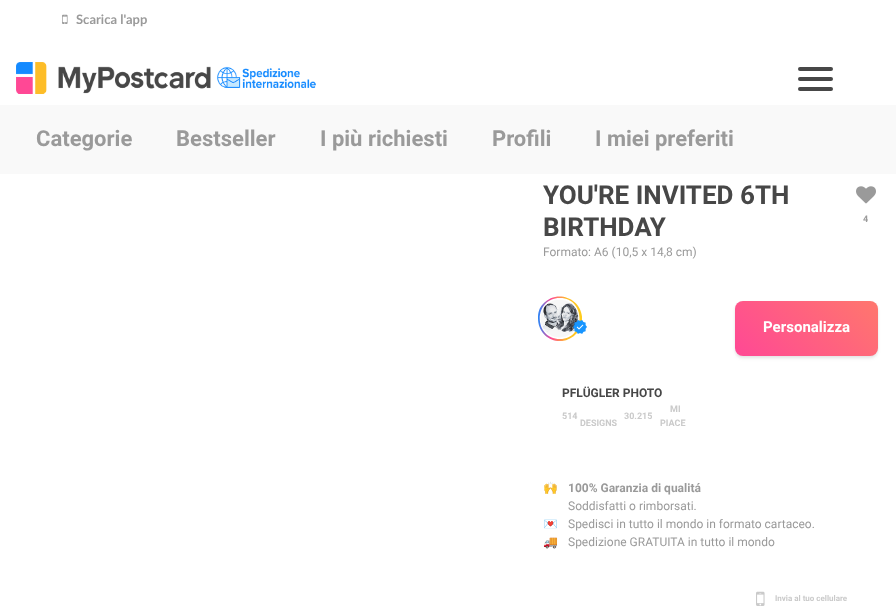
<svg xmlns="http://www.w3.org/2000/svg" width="896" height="607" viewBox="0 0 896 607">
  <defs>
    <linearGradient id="g1" gradientUnits="userSpaceOnUse" x1="757" y1="378" x2="856" y2="279"><stop offset="0" stop-color="rgb(255,72,149)"/><stop offset="1" stop-color="rgb(255,119,109)"/></linearGradient>
    <clipPath id="clip1"><rect x="537" y="296" width="45" height="45"/></clipPath>
    <linearGradient id="g2" gradientUnits="userSpaceOnUse" x1="537" y1="319" x2="582" y2="319"><stop offset="0" stop-color="rgb(21,138,255)"/><stop offset="0.31" stop-color="rgb(255,72,149)"/><stop offset="0.65" stop-color="rgb(254,189,43)"/><stop offset="1" stop-color="rgb(254,205,29)"/></linearGradient>
  </defs>
  <rect width="100%" height="100%" fill="rgb(255,255,255)"/>
  <image x="62" y="14" width="6" height="10" href="pic1.png"/>
  <text x="76" y="24" font-family="Lato" font-size="13" font-weight="bold" fill="rgb(154,154,154)">Scarica l'app</text>
  <image x="16" y="62" width="300" height="32" href="pic2.png"/>
  <rect x="798" y="77" width="35" height="4" rx="2" fill="rgb(71,71,71)"/>
  <rect x="798" y="67" width="35" height="4" rx="2" fill="rgb(71,71,71)"/>
  <rect x="798" y="87" width="35" height="4" rx="2" fill="rgb(71,71,71)"/>
  <rect x="0" y="105" width="896" height="69" fill="rgb(249,249,249)"/>
  <g font-family="Roboto" font-size="22" font-weight="bold" fill="rgb(154,154,154)">
    <text x="36" y="146">Categorie</text>
    <text x="176" y="146">Bestseller</text>
    <text x="320" y="146">I più richiesti</text>
    <text x="492" y="146">Profili</text>
    <text x="595" y="146">I miei preferiti</text>
  </g>
  <g font-family="Roboto" font-size="26" font-weight="bold" fill="rgb(71,71,71)">
    <text>
      <tspan x="543" y="204">YOU'RE INVITED 6TH</tspan>
      <tspan x="543" y="236">BIRTHDAY</tspan>
    </text>
  </g>
  <image x="856" y="186" width="20" height="18" href="pic3.png"/>
  <text x="863" y="222" font-family="Roboto" font-size="9" font-weight="bold" fill="rgb(154,154,154)">4</text>
  <text x="543" y="256" font-family="Roboto" font-size="12" fill="rgb(154,154,154)">Formato: A6 (10,5 x 14,8 cm)</text>
  <rect x="735" y="304" width="143" height="55" rx="8" fill="rgba(71,71,71,0.08)" filter="blur(1.5px)"/>
  <rect x="735" y="302" width="143" height="55" rx="8" fill="rgba(71,71,71,0.09)" filter="blur(1px)"/>
  <rect x="735" y="301" width="143" height="55" rx="8" fill="url(#g1)"/>
  <text x="763" y="332" font-family="Roboto" font-size="15" font-weight="bold" fill="rgb(255,255,255)">Personalizza</text>
  <g clip-path="url(#clip1)">
    <path d="M543 304C557 288 584 299 582 321C581 325 580 329 577 333C563 349 538 340 538 318C538 313 539 308 543 304ZM560 339C586 339 586 298 560 298C533 298 533 339 560 339Z" fill="url(#g2)" fill-rule="evenodd"/>
  </g>
  <image x="540" y="300" width="39" height="38" href="pic4.png"/>
  <image x="573" y="320" width="14" height="14" href="pic5.png"/>
  <text x="562" y="397" font-family="Roboto" font-size="12" font-weight="bold" fill="rgb(71,71,71)">PFLÜGLER PHOTO</text>
  <g font-family="Roboto" font-size="9" font-weight="bold" fill="rgb(202,202,202)">
    <text x="562" y="419">514</text>
    <text x="580" y="426">DESIGNS</text>
    <text x="624" y="419">30.215</text>
    <text x="670" y="412">MI</text>
    <text x="660" y="426">PIACE</text>
  </g>
  <text x="543" y="492" font-family="Noto Color Emoji" font-size="12" fill="rgb(154,154,154)">🙌</text>
  <text x="568" y="492" font-family="Roboto" font-size="12" font-weight="bold" fill="rgb(154,154,154)">100% Garanzia di qualitá</text>
  <text x="568" y="510" font-family="Roboto" font-size="12" fill="rgb(154,154,154)">Soddisfatti o rimborsati.</text>
  <text x="543" y="528" font-family="Noto Color Emoji" font-size="12" fill="rgb(154,154,154)">💌</text>
  <text x="568" y="528" font-family="Roboto" font-size="12" fill="rgb(154,154,154)">Spedisci in tutto il mondo in formato cartaceo.</text>
  <text x="543" y="546" font-family="Noto Color Emoji" font-size="12" fill="rgb(154,154,154)">🚚</text>
  <text x="568" y="546" font-family="Roboto" font-size="12" fill="rgb(154,154,154)">Spedizione GRATUITA in tutto il mondo</text>
  <image x="756" y="591" width="9" height="15" href="pic6.png"/>
  <text x="775" y="601" font-family="Roboto" font-size="8" font-weight="bold" fill="rgb(202,202,202)">Invia al tuo cellulare</text>
</svg>
